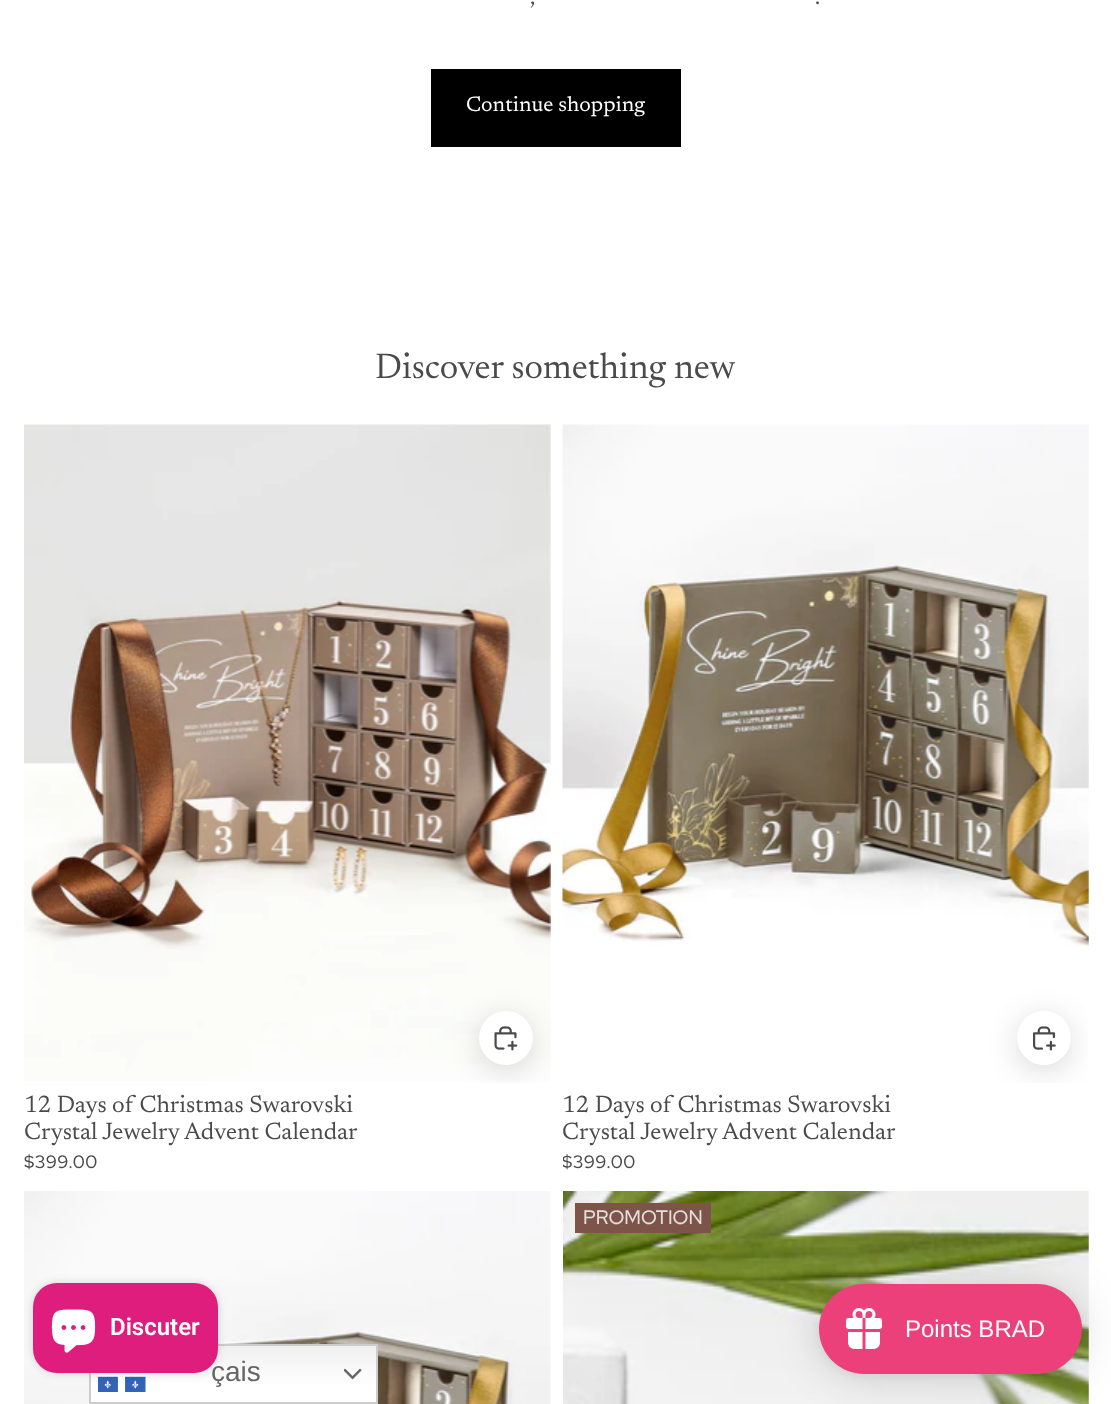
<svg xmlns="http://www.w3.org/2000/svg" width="1111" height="1404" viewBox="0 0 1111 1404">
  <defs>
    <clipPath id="clip1"><rect x="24" y="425" width="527" height="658"/></clipPath>
    <clipPath id="clip2"><rect x="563" y="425" width="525" height="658"/></clipPath>
    <clipPath id="clip3"><rect x="563" y="425" width="525" height="748"/></clipPath>
    <linearGradient id="g1" gradientUnits="userSpaceOnUse" x1="233" y1="1344" x2="233" y2="1404"><stop offset="0" stop-color="rgb(239,239,239)"/><stop offset="0.7" stop-color="rgb(255,255,255)"/></linearGradient>
  </defs>
  <rect width="100%" height="100%" fill="rgb(255,255,255)"/>
  <g font-family="Newsreader" font-size="21" fill="rgb(74,74,74)">
    <text x="530" y="4">,</text>
    <text x="815" y="4">.</text>
  </g>
  <rect x="431" y="69" width="250" height="78" fill="rgb(0,0,0)"/>
  <text x="466" y="111" font-family="Newsreader" font-size="21" fill="rgb(255,255,255)">Continue shopping</text>
  <text x="375" y="378" font-family="'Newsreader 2'" font-size="36" fill="rgb(74,74,74)">Discover something new</text>
  <image x="24" y="424" width="527" height="657" href="pic1.png"/>
  <g clip-path="url(#clip1)">
    <rect x="479" y="1017" width="54" height="54" rx="27" fill="rgba(0,0,0,0.15)" filter="blur(15px)"/>
  </g>
  <circle cx="506" cy="1038" r="27" fill="rgb(255,255,255)"/>
  <image x="494" y="1026" width="24" height="25" href="pic2.png"/>
  <g font-family="'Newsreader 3'" font-size="24" fill="rgb(74,74,74)">
    <text>
      <tspan x="24" y="1112">12 Days of Christmas Swarovski</tspan>
      <tspan x="24" y="1139">Crystal Jewelry Advent Calendar</tspan>
    </text>
  </g>
  <text x="24" y="1168" font-family="Red Hat Display" font-size="18" font-weight="500" letter-spacing="0.5" fill="rgb(74,74,74)">$399.00</text>
  <image x="562" y="424" width="527" height="523" href="pic3.png"/>
  <g clip-path="url(#clip2)">
    <rect x="1017" y="1017" width="54" height="54" rx="27" fill="rgba(0,0,0,0.15)" filter="blur(15px)"/>
  </g>
  <circle cx="1044" cy="1038" r="27" fill="rgb(255,255,255)"/>
  <image x="1033" y="1026" width="23" height="25" href="pic4.png"/>
  <g font-family="'Newsreader 3'" font-size="24" fill="rgb(74,74,74)">
    <text>
      <tspan x="562" y="1112">12 Days of Christmas Swarovski</tspan>
      <tspan x="562" y="1139">Crystal Jewelry Advent Calendar</tspan>
    </text>
  </g>
  <g clip-path="url(#clip3)">
    <text x="562" y="1168" font-family="Red Hat Display" font-size="18" font-weight="500" letter-spacing="0.5" fill="rgb(74,74,74)">$399.00</text>
  </g>
  <image x="24" y="1191" width="527" height="213" href="pic5.png"/>
  <image x="563" y="1191" width="526" height="213" href="pic6.png"/>
  <rect x="575" y="1203" width="136" height="30" fill="rgb(125,84,73)"/>
  <text x="583" y="1224" font-family="Red Hat Display" font-size="19.5" font-weight="500" fill="rgb(230,223,220)">PROMOTION</text>
  <rect x="91" y="1346" width="285" height="56" fill="url(#g1)"/>
  <rect x="90" y="1345" width="287" height="58" fill="none" stroke="rgb(204,204,204)" stroke-width="2"/>
  <image x="98" y="1373" width="48" height="19" href="pic9.png"/>
  <rect x="33" y="1283" width="185" height="90" rx="24" fill="rgba(0,0,0,0.15)" filter="blur(4px)"/>
  <text x="211" y="1381" font-family="Liberation Sans" font-size="28" fill="rgb(102,102,102)">çais</text>
  <rect x="33" y="1283" width="185" height="90" rx="24" fill="rgb(222,29,124)"/>
  <image x="51" y="1309" width="45" height="44" href="pic7.png"/>
  <text x="110" y="1335" font-family="Roboto" font-size="24" font-weight="600" fill="rgb(255,255,255)">Discuter</text>
  <rect x="819" y="1287" width="263" height="90" rx="45" fill="rgba(0,0,0,0.15)" filter="blur(22.5px)"/>
  <rect x="819" y="1286" width="263" height="90" rx="45" fill="rgba(0,0,0,0.05)" filter="blur(4.5px)"/>
  <rect x="819" y="1284" width="263" height="90" rx="45" fill="rgb(236,64,122)"/>
  <image x="846" y="1308" width="36" height="41" href="pic8.png"/>
  <text x="905" y="1337" font-family="Liberation Sans" font-size="24" fill="rgb(255,255,255)">Points BRAD</text>
  <image x="344" y="1368" width="18" height="12" href="pic10.png"/>
</svg>
